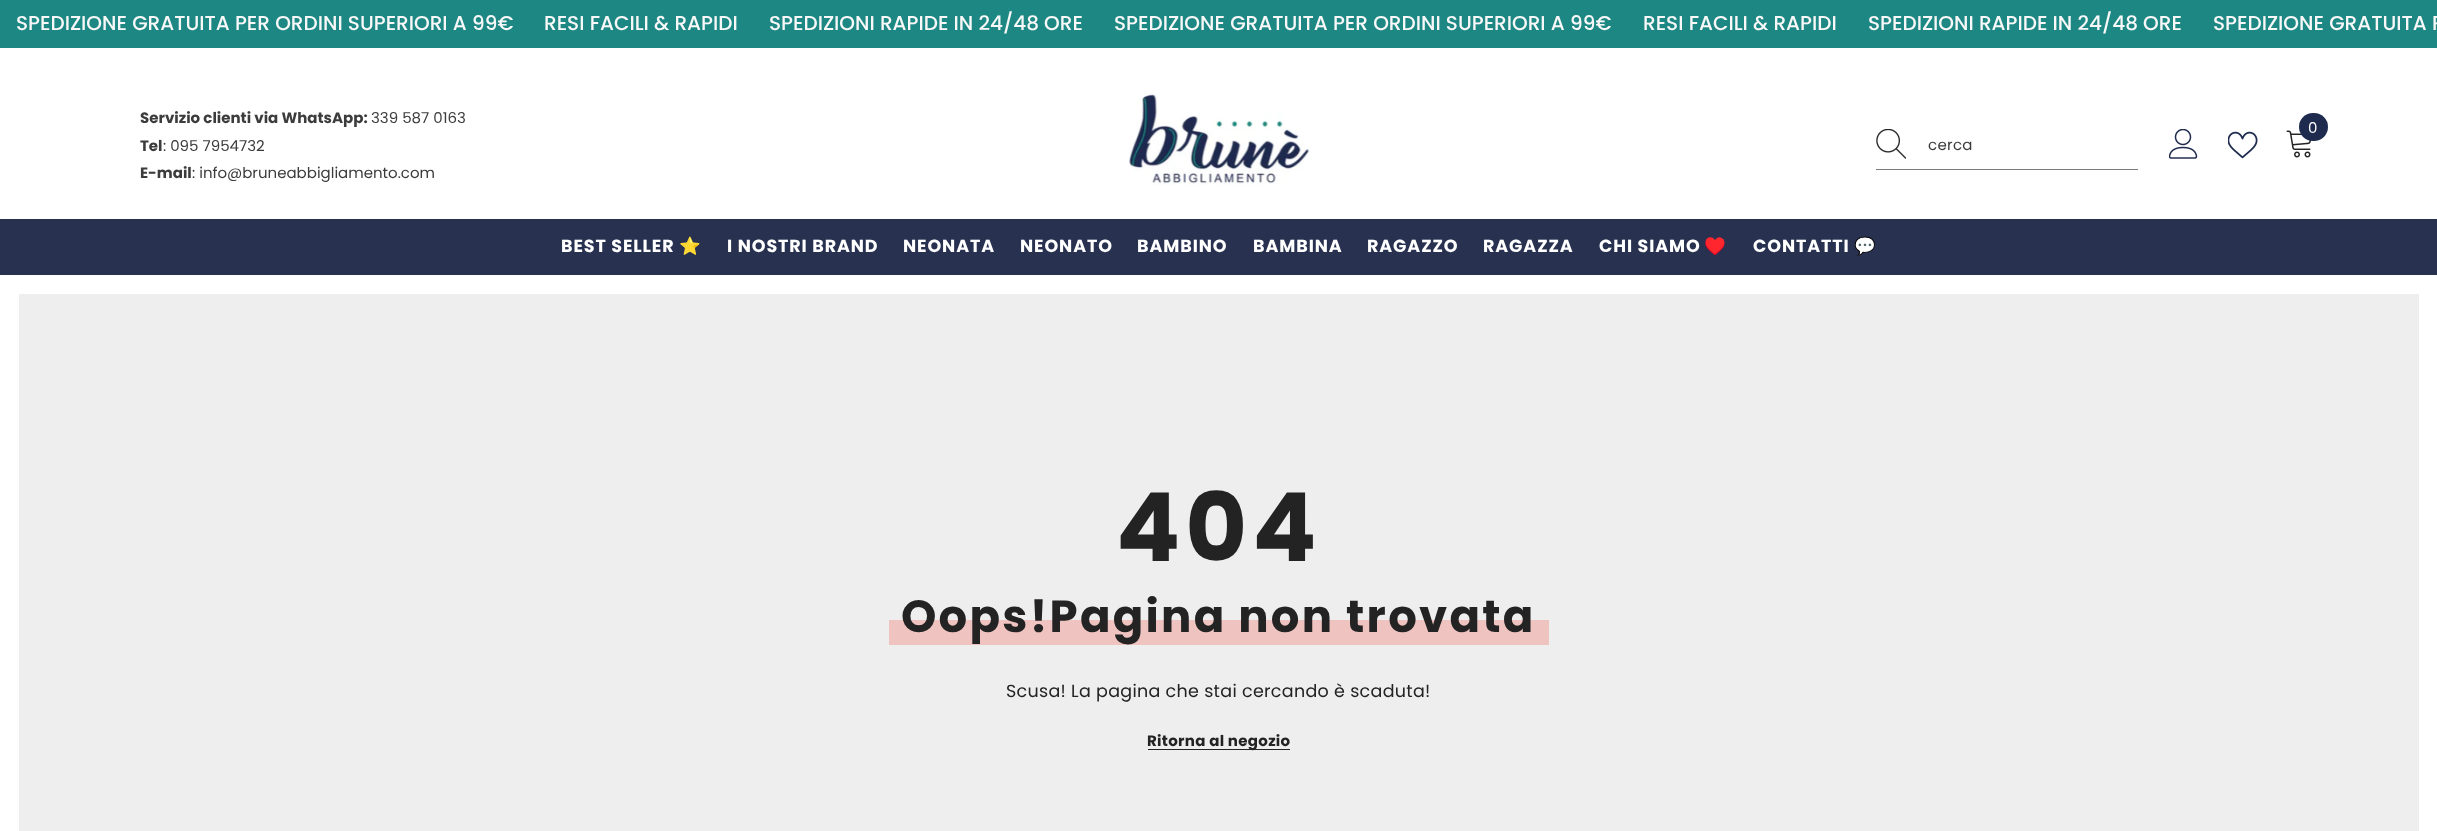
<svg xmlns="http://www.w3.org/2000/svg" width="2437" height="831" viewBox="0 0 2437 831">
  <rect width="100%" height="100%" fill="rgb(255,255,255)"/>
  <rect x="0" y="0" width="2437" height="48" fill="rgb(29,135,131)"/>
  <g font-family="Poppins" font-size="20" font-weight="500" fill="rgb(248,248,248)">
    <text x="16" y="30">SPEDIZIONE GRATUITA PER ORDINI SUPERIORI A 99€</text>
    <text x="544" y="30">RESI FACILI &amp; RAPIDI</text>
    <text x="769" y="30">SPEDIZIONI RAPIDE IN 24/48 ORE</text>
    <text x="1114" y="30">SPEDIZIONE GRATUITA PER ORDINI SUPERIORI A 99€</text>
    <text x="1643" y="30">RESI FACILI &amp; RAPIDI</text>
    <text x="1868" y="30">SPEDIZIONI RAPIDE IN 24/48 ORE</text>
    <text x="2213" y="30">SPEDIZIONE GRATUITA P</text>
  </g>
  <text x="140" y="123" font-family="Poppins" font-size="15" font-weight="bold" fill="rgb(60,60,60)">Servizio clienti via WhatsApp:</text>
  <text x="371" y="123" font-family="Poppins" font-size="15" fill="rgb(60,60,60)">339 587 0163</text>
  <text x="140" y="151" font-family="Poppins" font-size="15" font-weight="bold" fill="rgb(60,60,60)">Tel</text>
  <text x="163" y="151" font-family="Poppins" font-size="15" fill="rgb(60,60,60)">: 095 7954732</text>
  <text x="140" y="178" font-family="Poppins" font-size="15" font-weight="bold" fill="rgb(60,60,60)">E-mail</text>
  <text x="192" y="178" font-family="Poppins" font-size="15" fill="rgb(60,60,60)">: info@bruneabbigliamento.com</text>
  <image x="1129" y="93" width="182" height="92" href="pic1.png"/>
  <image x="2286" y="130" width="25" height="28" href="pic2.png"/>
  <rect x="2299" y="113" width="29" height="28" rx="14" fill="rgb(30,43,78)"/>
  <text x="2308" y="133" font-family="Poppins" font-size="15" fill="rgb(255,255,255)">0</text>
  <image x="2169" y="129" width="29" height="30" href="pic3.png"/>
  <image x="2228" y="131" width="30" height="28" href="pic4.png"/>
  <rect x="1876" y="169" width="262" height="1" fill="rgb(123,123,123)"/>
  <image x="1876" y="129" width="30" height="30" href="pic5.png"/>
  <text x="1928" y="150" font-family="Poppins" font-size="15" letter-spacing="0.3" fill="rgb(60,60,60)">cerca</text>
  <rect x="0" y="219" width="2437" height="56" fill="rgb(40,49,80)"/>
  <text x="561" y="252" font-family="Poppins" font-size="17.5" font-weight="bold" letter-spacing="0.9" fill="rgb(255,255,255)">BEST SELLER</text>
  <text x="679" y="252" font-family="Noto Color Emoji" font-size="17.5" font-weight="bold" letter-spacing="0.9" fill="rgb(255,255,255)">⭐</text>
  <g font-family="Poppins" font-size="17.5" font-weight="bold" letter-spacing="0.9" fill="rgb(255,255,255)">
    <text x="727" y="252">I NOSTRI BRAND</text>
    <text x="903" y="252">NEONATA</text>
    <text x="1020" y="252">NEONATO</text>
    <text x="1137" y="252">BAMBINO</text>
    <text x="1253" y="252">BAMBINA</text>
    <text x="1367" y="252">RAGAZZO</text>
    <text x="1483" y="252">RAGAZZA</text>
    <text x="1599" y="252">CHI SIAMO</text>
  </g>
  <text x="1704" y="252" font-family="Noto Color Emoji" font-size="17.5" font-weight="bold" letter-spacing="0.9" fill="rgb(255,255,255)">♥️</text>
  <text x="1753" y="252" font-family="Poppins" font-size="17.5" font-weight="bold" letter-spacing="0.9" fill="rgb(255,255,255)">CONTATTI</text>
  <text x="1854" y="252" font-family="Noto Color Emoji" font-size="17.5" font-weight="bold" letter-spacing="0.9" fill="rgb(255,255,255)">💬</text>
  <rect x="19" y="294" width="2400" height="537" fill="rgb(238,238,238)"/>
  <text x="1116" y="561" font-family="Poppins" font-size="95" font-weight="bold" letter-spacing="5" fill="rgb(35,35,35)">404</text>
  <rect x="889" y="620" width="660" height="25" fill="rgb(239,195,192)"/>
  <text x="901" y="632" font-family="Poppins" font-size="45" font-weight="bold" letter-spacing="2.25" fill="rgb(35,35,35)">Oops!Pagina non trovata</text>
  <text x="1006" y="697" font-family="Poppins" font-size="17.5" letter-spacing="0.3" fill="rgb(35,35,35)">Scusa! La pagina che stai cercando è scaduta!</text>
  <rect x="1148" y="749" width="142" height="1" fill="rgb(35,35,35)"/>
  <text x="1147" y="746" font-family="Poppins" font-size="15" font-weight="bold" letter-spacing="0.3" fill="rgb(35,35,35)">Ritorna al negozio</text>
</svg>
